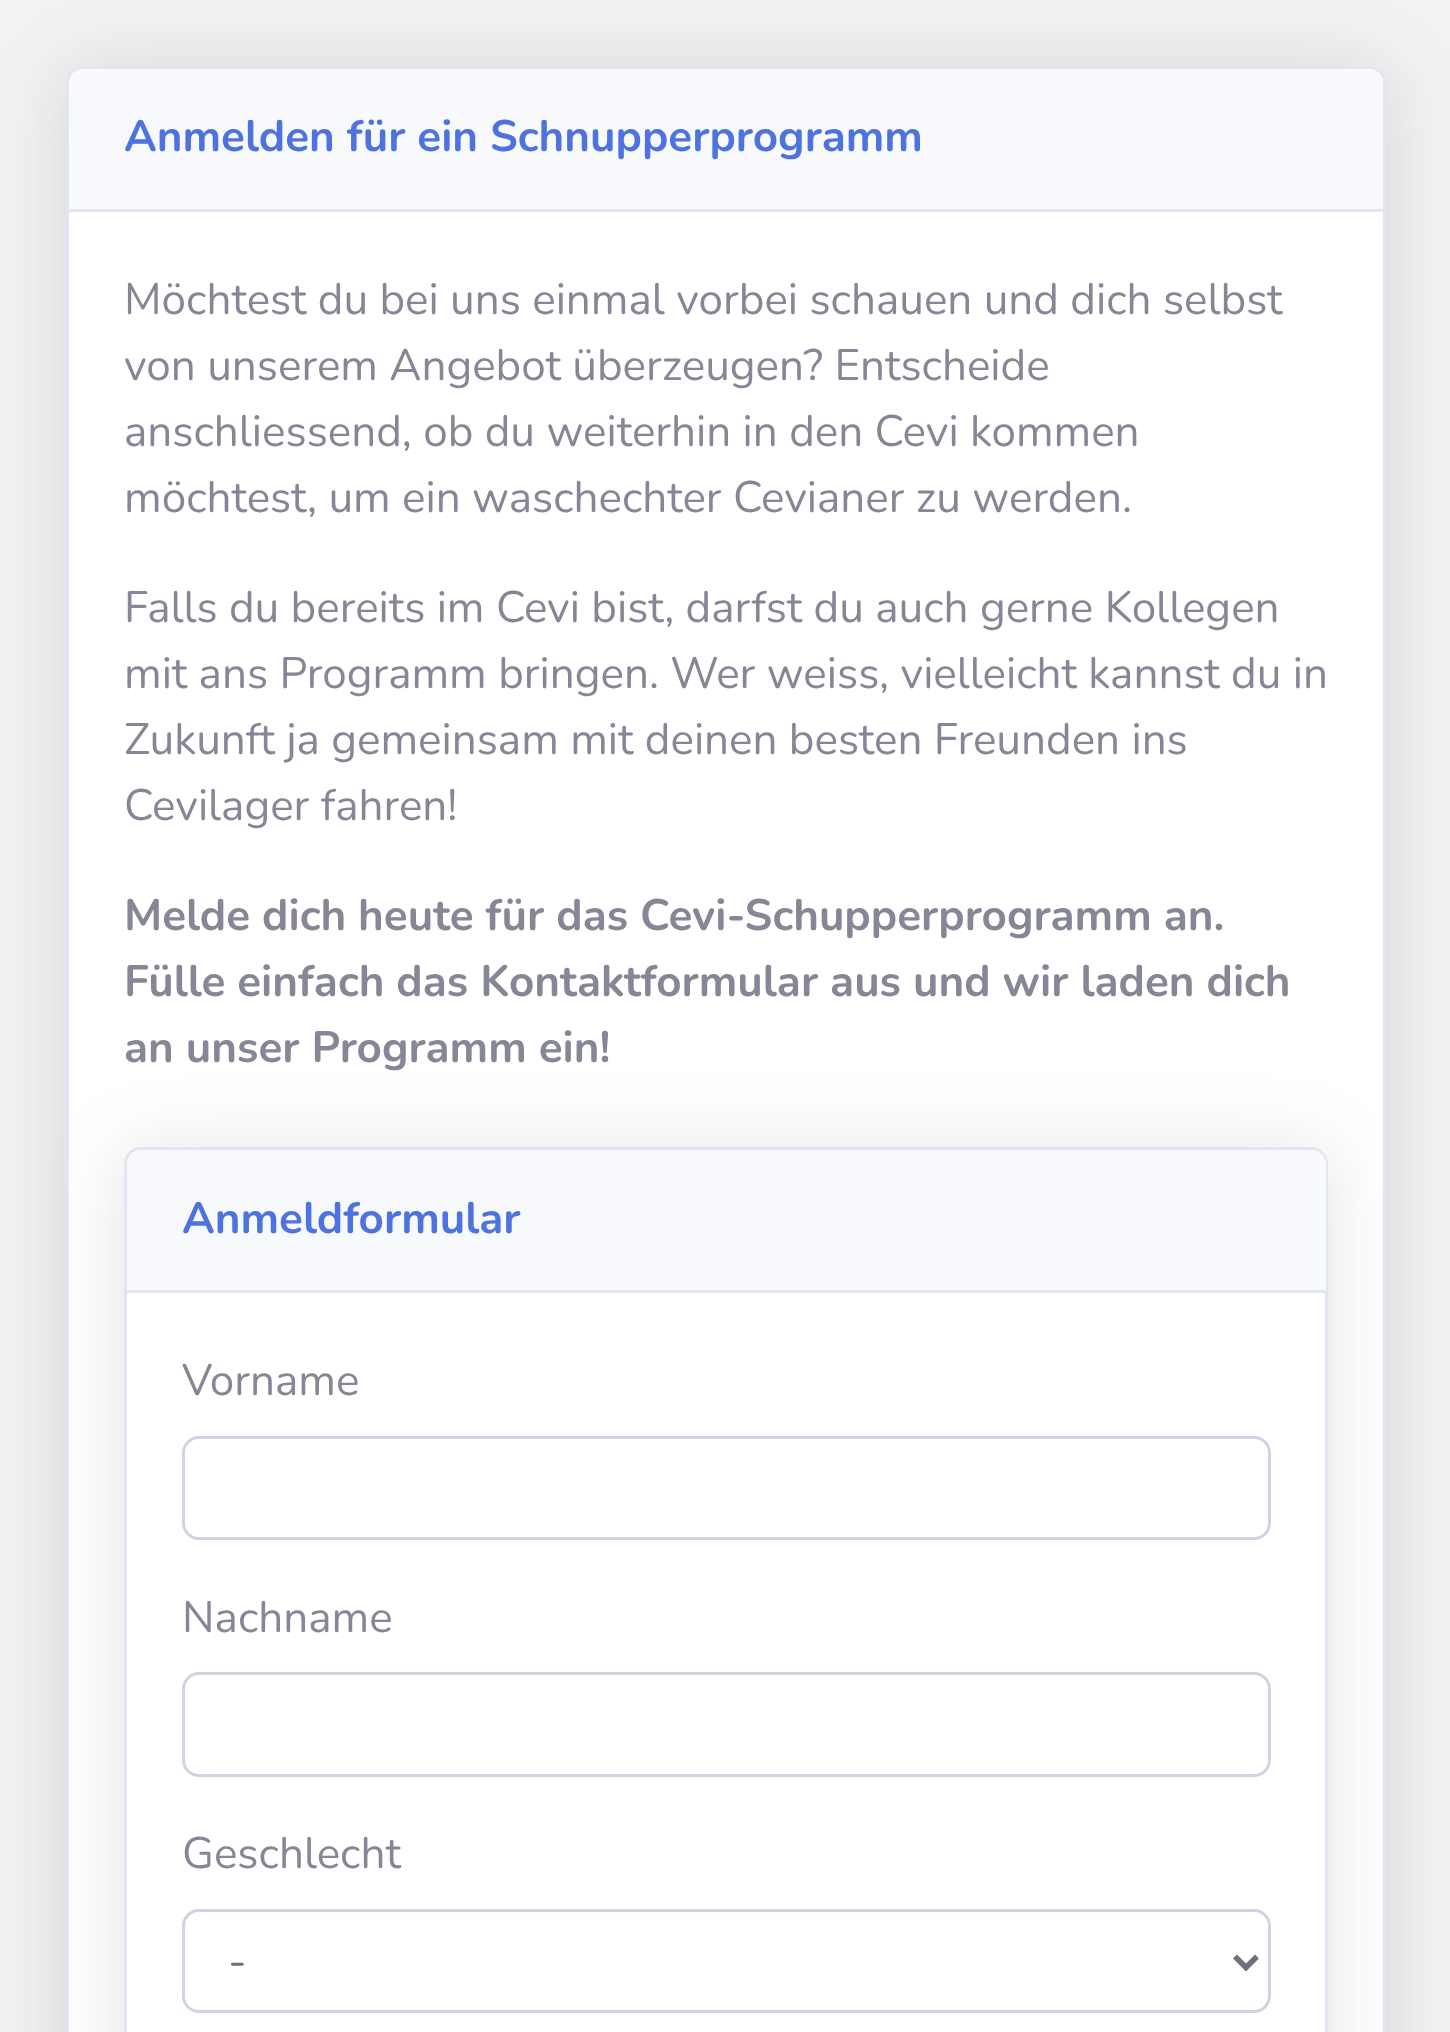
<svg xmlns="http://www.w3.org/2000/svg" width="1450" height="2032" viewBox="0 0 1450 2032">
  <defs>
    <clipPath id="clip1"><path d="M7 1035H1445V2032H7ZM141 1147H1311C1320.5 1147 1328 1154.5 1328 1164V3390C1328 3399.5 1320.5 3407 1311 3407H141C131.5 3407 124 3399.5 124 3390V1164C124 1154.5 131.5 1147 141 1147Z" clip-rule="evenodd"/></clipPath>
  </defs>
  <rect width="100%" height="100%" fill="rgb(242,242,242)"/>
  <rect x="66" y="72" width="1320" height="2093" rx="17" fill="rgba(58,59,69,0.15)" filter="blur(38.5px)"/>
  <rect x="67.5" y="67.5" width="1317" height="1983" rx="15.5" fill="rgb(255,255,255)" stroke="rgb(227,230,240)" stroke-width="3"/>
  <path d="M83 69H1369C1376.5 69 1383 75.5 1383 83V212H69V83C69 75.5 75.5 69 83 69Z" fill="rgb(248,249,252)"/>
  <rect x="69" y="209" width="1314" height="3" fill="rgb(227,230,240)"/>
  <text x="124" y="151" font-family="Nunito" font-size="44" font-weight="bold" fill="rgb(78,115,223)">Anmelden für ein Schnupperprogramm</text>
  <g font-family="Nunito" font-size="44" fill="rgb(133,135,150)">
    <text>
      <tspan x="124" y="314">Möchtest du bei uns einmal vorbei schauen und dich selbst</tspan>
      <tspan x="124" y="380">von unserem Angebot überzeugen? Entscheide</tspan>
      <tspan x="124" y="446">anschliessend, ob du weiterhin in den Cevi kommen</tspan>
      <tspan x="124" y="512">möchtest, um ein waschechter Cevianer zu werden.</tspan>
    </text>
    <text>
      <tspan x="124" y="622">Falls du bereits im Cevi bist, darfst du auch gerne Kollegen</tspan>
      <tspan x="124" y="688">mit ans Programm bringen. Wer weiss, vielleicht kannst du in</tspan>
      <tspan x="124" y="754">Zukunft ja gemeinsam mit deinen besten Freunden ins</tspan>
      <tspan x="124" y="820">Cevilager fahren!</tspan>
    </text>
  </g>
  <g font-family="Nunito" font-size="44" font-weight="bold" fill="rgb(133,135,150)">
    <text>
      <tspan x="124" y="930">Melde dich heute für das Cevi-Schupperprogramm an.</tspan>
      <tspan x="124" y="996">Fülle einfach das Kontaktformular aus und wir laden dich</tspan>
      <tspan x="124" y="1062">an unser Programm ein!</tspan>
    </text>
  </g>
  <g clip-path="url(#clip1)">
    <rect x="124" y="1152" width="1204" height="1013" rx="17" fill="rgba(58,59,69,0.15)" filter="blur(38.5px)"/>
  </g>
  <rect x="125.5" y="1148.5" width="1201" height="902" rx="15.5" fill="none" stroke="rgb(227,230,240)" stroke-width="3"/>
  <path d="M141 1150H1312C1319.5 1150 1326 1156.5 1326 1164V1293H127V1164C127 1156.5 133.5 1150 141 1150Z" fill="rgb(248,249,252)"/>
  <rect x="127" y="1290" width="1199" height="3" fill="rgb(227,230,240)"/>
  <text x="182" y="1233" font-family="Nunito" font-size="44" font-weight="bold" fill="rgb(78,115,223)">Anmeldformular</text>
  <text x="182" y="1395" font-family="Nunito" font-size="44" fill="rgb(133,135,150)">Vorname</text>
  <rect x="183.5" y="1437.5" width="1086" height="101" rx="15.5" fill="none" stroke="rgb(209,211,226)" stroke-width="3"/>
  <text x="182" y="1632" font-family="Nunito" font-size="44" fill="rgb(133,135,150)">Nachname</text>
  <rect x="183.5" y="1673.5" width="1086" height="102" rx="15.5" fill="none" stroke="rgb(209,211,226)" stroke-width="3"/>
  <text x="182" y="1868" font-family="Nunito" font-size="44" fill="rgb(133,135,150)">Geschlecht</text>
  <rect x="183.5" y="1910.5" width="1086" height="101" rx="15.5" fill="none" stroke="rgb(209,211,226)" stroke-width="3"/>
  <path d="M1235 1956.5L1246 1967.5L1257 1956.5" fill="none" stroke="rgb(110,112,126)" stroke-width="5.5"/>
  <text x="228" y="1976" font-family="Nunito" font-size="44" fill="rgb(110,112,126)">-</text>
</svg>
